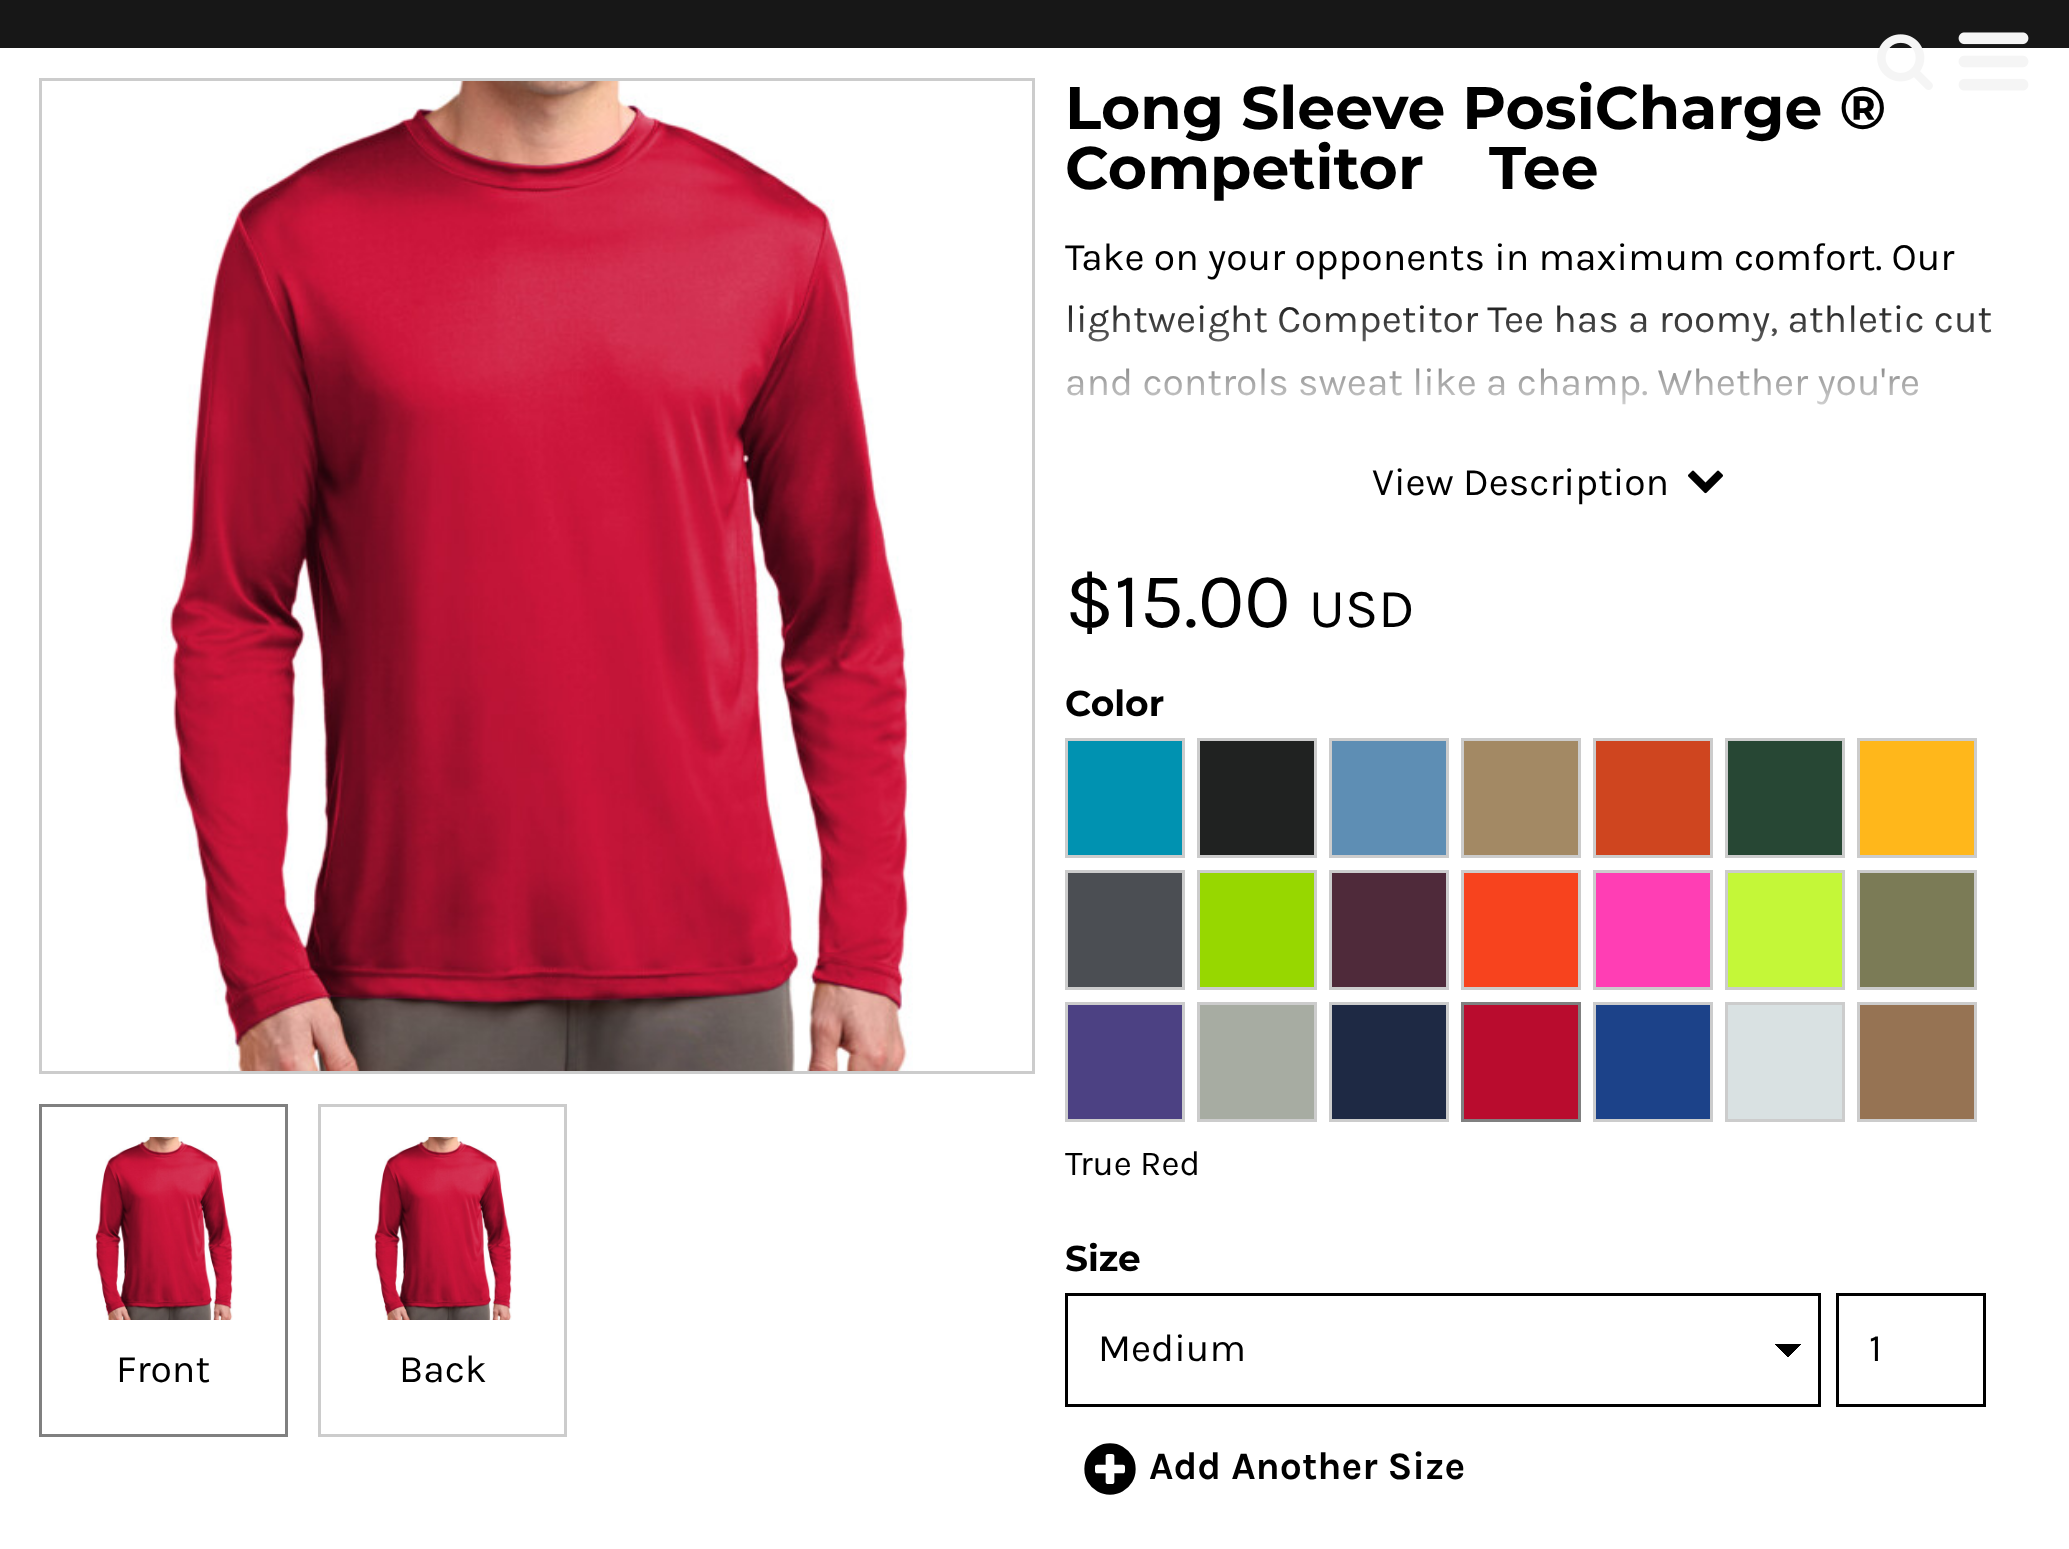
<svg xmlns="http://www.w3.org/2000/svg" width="2069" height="1549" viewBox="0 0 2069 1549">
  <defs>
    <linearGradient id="g1" gradientUnits="userSpaceOnUse" x1="1548" y1="528" x2="1548" y2="288"><stop offset="0" stop-color="rgb(255,255,255)"/><stop offset="0.4" stop-color="rgb(255,255,255)"/><stop offset="1" stop-color="rgb(255,255,255)" stop-opacity="0"/></linearGradient>
    <linearGradient id="g2" gradientUnits="userSpaceOnUse" x1="1788" y1="1343" x2="1803" y2="1358"><stop offset="0.5" stop-color="rgb(0,0,0)"/><stop offset="0.5" stop-color="rgb(255,255,255)"/></linearGradient>
    <linearGradient id="g3" gradientUnits="userSpaceOnUse" x1="1773" y1="1358" x2="1788" y2="1343"><stop offset="0.5" stop-color="rgb(255,255,255)"/><stop offset="0.5" stop-color="rgb(0,0,0)"/></linearGradient>
  </defs>
  <rect width="100%" height="100%" fill="rgb(255,255,255)"/>
  <rect x="0" y="0" width="2069" height="48" fill="rgb(23,23,23)"/>
  <image x="1877" y="34" width="56" height="56" href="pic1.png"/>
  <image x="1958" y="32" width="71" height="59" href="pic2.png"/>
  <rect x="40.5" y="79.5" width="993" height="993" fill="none" stroke="rgb(204,204,204)" stroke-width="3"/>
  <image x="161" y="81" width="752" height="990" href="pic3.png"/>
  <rect x="40.5" y="1105.5" width="246" height="330" fill="none" stroke="rgb(128,128,128)" stroke-width="3"/>
  <image x="95" y="1137" width="138" height="183" href="pic4.png"/>
  <text x="116" y="1382" font-family="Karla" font-size="39" fill="rgb(0,0,0)">Front</text>
  <rect x="319.5" y="1105.5" width="246" height="330" fill="none" stroke="rgb(204,204,204)" stroke-width="3"/>
  <image x="374" y="1137" width="138" height="183" href="pic4.png"/>
  <text x="399" y="1382" font-family="Karla" font-size="39" fill="rgb(0,0,0)">Back</text>
  <g font-family="Montserrat" font-size="60" font-weight="100" fill="rgb(0,0,0)">
    <text>
      <tspan x="1065" y="129">Long Sleeve PosiCharge ®</tspan>
      <tspan x="1065" y="189">Competitor</tspan>
    </text>
    <text x="1489" y="189">Tee</text>
  </g>
  <g font-family="Karla" font-size="39" fill="rgb(0,0,0)">
    <text>
      <tspan x="1065" y="270">Take on your opponents in maximum comfort. Our</tspan>
      <tspan x="1065" y="332">lightweight Competitor Tee has a roomy, athletic cut</tspan>
      <tspan x="1065" y="395">and controls sweat like a champ. Whether you're</tspan>
    </text>
  </g>
  <rect x="1067" y="305" width="925" height="100" fill="url(#g1)"/>
  <text x="1372" y="495" font-family="Karla" font-size="39" fill="rgb(0,0,0)">View Description</text>
  <image x="1688" y="470" width="35" height="24" href="pic5.png"/>
  <text x="1065" y="627" font-family="Karla" font-size="78" fill="rgb(0,0,0)">$15.00</text>
  <text x="1309" y="627" font-family="Karla" font-size="55" fill="rgb(0,0,0)">USD</text>
  <text x="1065" y="716" font-family="Montserrat" font-size="36" font-weight="100" fill="rgb(0,0,0)">Color</text>
  <rect x="1066.5" y="739.5" width="117" height="117" fill="none" stroke="rgb(204,204,204)" stroke-width="3"/>
  <rect x="1068" y="741" width="114" height="114" fill="rgb(0,146,177)"/>
  <rect x="1198.5" y="739.5" width="117" height="117" fill="none" stroke="rgb(204,204,204)" stroke-width="3"/>
  <rect x="1200" y="741" width="114" height="114" fill="rgb(32,34,33)"/>
  <rect x="1330.5" y="739.5" width="117" height="117" fill="none" stroke="rgb(204,204,204)" stroke-width="3"/>
  <rect x="1332" y="741" width="114" height="114" fill="rgb(94,142,180)"/>
  <rect x="1462.5" y="739.5" width="117" height="117" fill="none" stroke="rgb(204,204,204)" stroke-width="3"/>
  <rect x="1464" y="741" width="114" height="114" fill="rgb(163,137,100)"/>
  <rect x="1594.5" y="739.5" width="117" height="117" fill="none" stroke="rgb(204,204,204)" stroke-width="3"/>
  <rect x="1596" y="741" width="114" height="114" fill="rgb(207,69,31)"/>
  <rect x="1726.5" y="739.5" width="117" height="117" fill="none" stroke="rgb(204,204,204)" stroke-width="3"/>
  <rect x="1728" y="741" width="114" height="114" fill="rgb(39,71,52)"/>
  <rect x="1858.5" y="739.5" width="117" height="117" fill="none" stroke="rgb(204,204,204)" stroke-width="3"/>
  <rect x="1860" y="741" width="114" height="114" fill="rgb(255,183,27)"/>
  <rect x="1066.5" y="871.5" width="117" height="117" fill="none" stroke="rgb(204,204,204)" stroke-width="3"/>
  <rect x="1068" y="873" width="114" height="114" fill="rgb(75,78,83)"/>
  <rect x="1198.5" y="871.5" width="117" height="117" fill="none" stroke="rgb(204,204,204)" stroke-width="3"/>
  <rect x="1200" y="873" width="114" height="114" fill="rgb(151,215,0)"/>
  <rect x="1330.5" y="871.5" width="117" height="117" fill="none" stroke="rgb(204,204,204)" stroke-width="3"/>
  <rect x="1332" y="873" width="114" height="114" fill="rgb(79,42,58)"/>
  <rect x="1462.5" y="871.5" width="117" height="117" fill="none" stroke="rgb(204,204,204)" stroke-width="3"/>
  <rect x="1464" y="873" width="114" height="114" fill="rgb(247,67,30)"/>
  <rect x="1594.5" y="871.5" width="117" height="117" fill="none" stroke="rgb(204,204,204)" stroke-width="3"/>
  <rect x="1596" y="873" width="114" height="114" fill="rgb(255,62,180)"/>
  <rect x="1726.5" y="871.5" width="117" height="117" fill="none" stroke="rgb(204,204,204)" stroke-width="3"/>
  <rect x="1728" y="873" width="114" height="114" fill="rgb(196,247,56)"/>
  <rect x="1858.5" y="871.5" width="117" height="117" fill="none" stroke="rgb(204,204,204)" stroke-width="3"/>
  <rect x="1860" y="873" width="114" height="114" fill="rgb(123,123,86)"/>
  <rect x="1066.5" y="1003.5" width="117" height="117" fill="none" stroke="rgb(204,204,204)" stroke-width="3"/>
  <rect x="1068" y="1005" width="114" height="114" fill="rgb(76,65,131)"/>
  <rect x="1198.5" y="1003.5" width="117" height="117" fill="none" stroke="rgb(204,204,204)" stroke-width="3"/>
  <rect x="1200" y="1005" width="114" height="114" fill="rgb(167,172,162)"/>
  <rect x="1330.5" y="1003.5" width="117" height="117" fill="none" stroke="rgb(204,204,204)" stroke-width="3"/>
  <rect x="1332" y="1005" width="114" height="114" fill="rgb(30,41,68)"/>
  <rect x="1462.5" y="1003.5" width="117" height="117" fill="none" stroke="rgb(128,128,128)" stroke-width="3"/>
  <rect x="1464" y="1005" width="114" height="114" fill="rgb(185,12,46)"/>
  <rect x="1594.5" y="1003.5" width="117" height="117" fill="none" stroke="rgb(204,204,204)" stroke-width="3"/>
  <rect x="1596" y="1005" width="114" height="114" fill="rgb(28,66,137)"/>
  <rect x="1726.5" y="1003.5" width="117" height="117" fill="none" stroke="rgb(204,204,204)" stroke-width="3"/>
  <rect x="1728" y="1005" width="114" height="114" fill="rgb(217,225,226)"/>
  <rect x="1858.5" y="1003.5" width="117" height="117" fill="none" stroke="rgb(204,204,204)" stroke-width="3"/>
  <rect x="1860" y="1005" width="114" height="114" fill="rgb(150,115,83)"/>
  <text x="1065" y="1175" font-family="Karla" font-size="35" fill="rgb(0,0,0)">True Red</text>
  <text x="1065" y="1271" font-family="Montserrat" font-size="36" font-weight="100" fill="rgb(0,0,0)">Size</text>
  <rect x="1788" y="1344" width="14" height="13" fill="url(#g2)"/>
  <rect x="1775" y="1344" width="13" height="13" fill="url(#g3)"/>
  <rect x="1066.5" y="1294.5" width="753" height="111" fill="none" stroke="rgb(0,0,0)" stroke-width="3"/>
  <text x="1098" y="1361" font-family="Karla" font-size="39" fill="rgb(0,0,0)">Medium</text>
  <rect x="1837.5" y="1294.5" width="147" height="111" fill="none" stroke="rgb(0,0,0)" stroke-width="3"/>
  <text x="1869" y="1361" font-family="Karla" font-size="39" fill="rgb(0,0,0)">1</text>
  <text x="1080" y="1499" font-family="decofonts" font-size="60" fill="rgb(0,0,0)">0</text>
  <text x="1149" y="1479" font-family="Karla" font-size="39" font-weight="bold" fill="rgb(0,0,0)">Add Another Size</text>
</svg>
